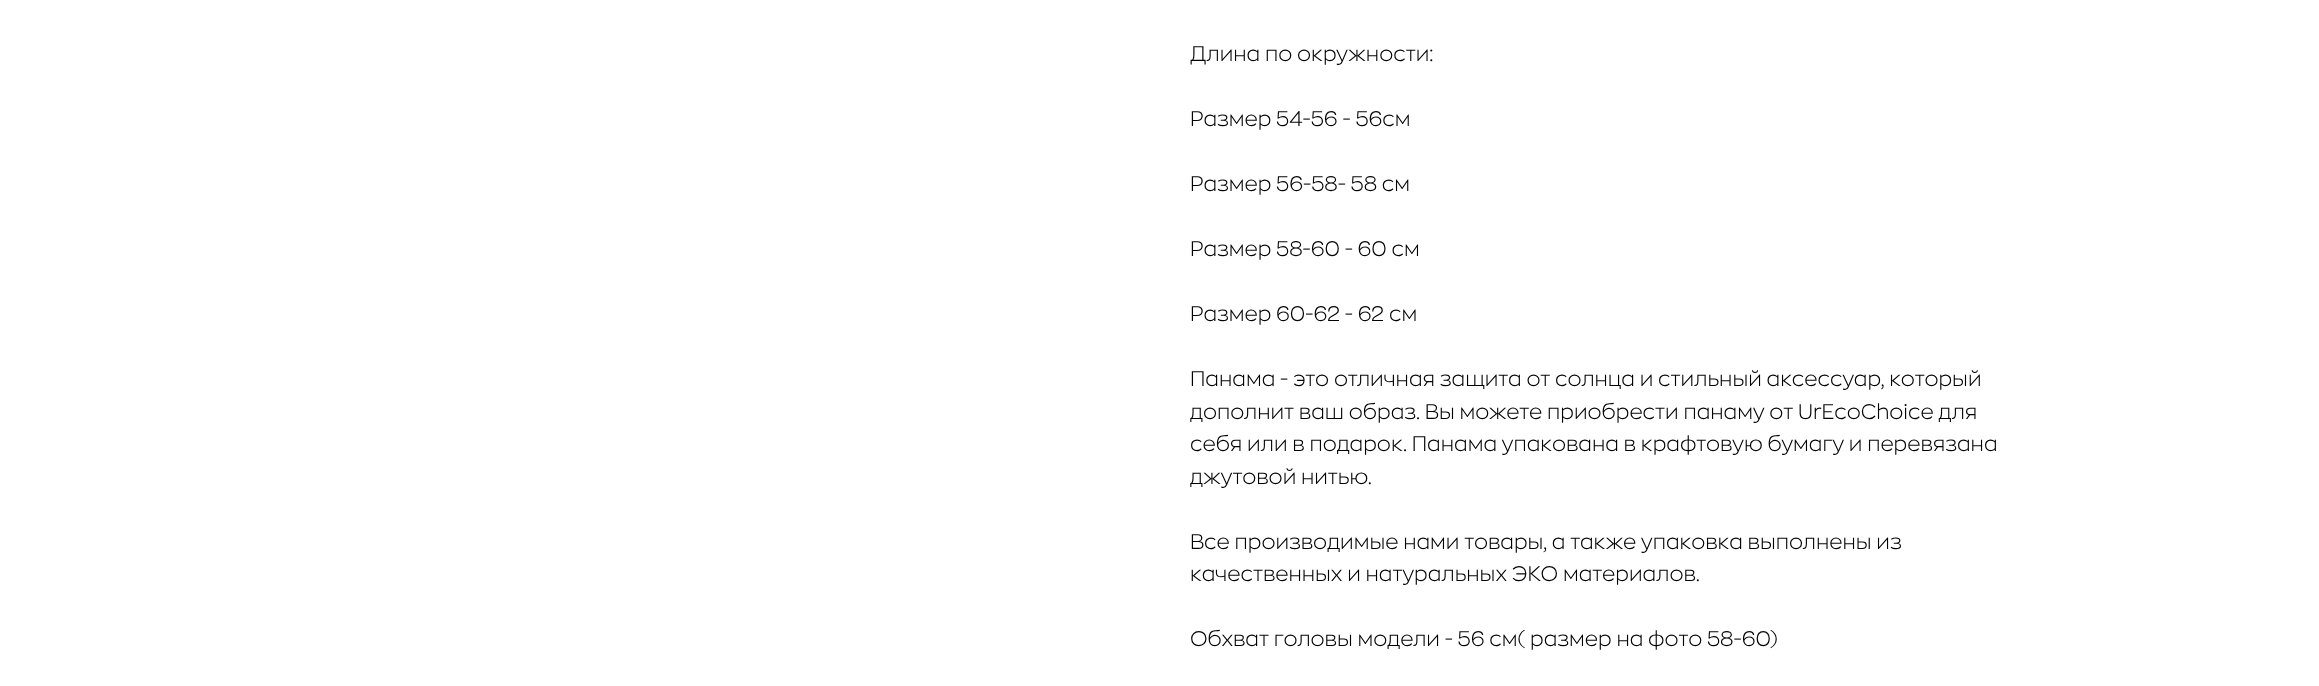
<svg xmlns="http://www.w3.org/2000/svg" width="2319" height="686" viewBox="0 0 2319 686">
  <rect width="100%" height="100%" fill="rgb(255,255,255)"/>
  <g font-family="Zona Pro" font-size="21" font-weight="300" fill="rgb(0,0,0)">
    <text x="1190" y="61">Длина по окружности:</text>
    <text x="1190" y="126">Размер 54-56 - 56см</text>
    <text x="1190" y="191">Размер 56-58- 58 см</text>
    <text x="1190" y="256">Размер 58-60 - 60 см</text>
    <text x="1190" y="321">Размер 60-62 - 62 см</text>
    <text>
      <tspan x="1190" y="386">Панама - это отличная защита от солнца и стильный аксессуар, который</tspan>
      <tspan x="1190" y="419">дополнит ваш образ. Вы можете приобрести панаму от UrEcoChoice для</tspan>
      <tspan x="1190" y="451">себя или в подарок. Панама упакована в крафтовую бумагу и перевязана</tspan>
      <tspan x="1190" y="484">джутовой нитью.</tspan>
    </text>
    <text>
      <tspan x="1190" y="549">Все производимые нами товары, а также упаковка выполнены из</tspan>
      <tspan x="1190" y="581">качественных и натуральных ЭКО материалов.</tspan>
    </text>
    <text x="1190" y="646">Обхват головы модели - 56 см( размер на фото 58-60)</text>
  </g>
</svg>
